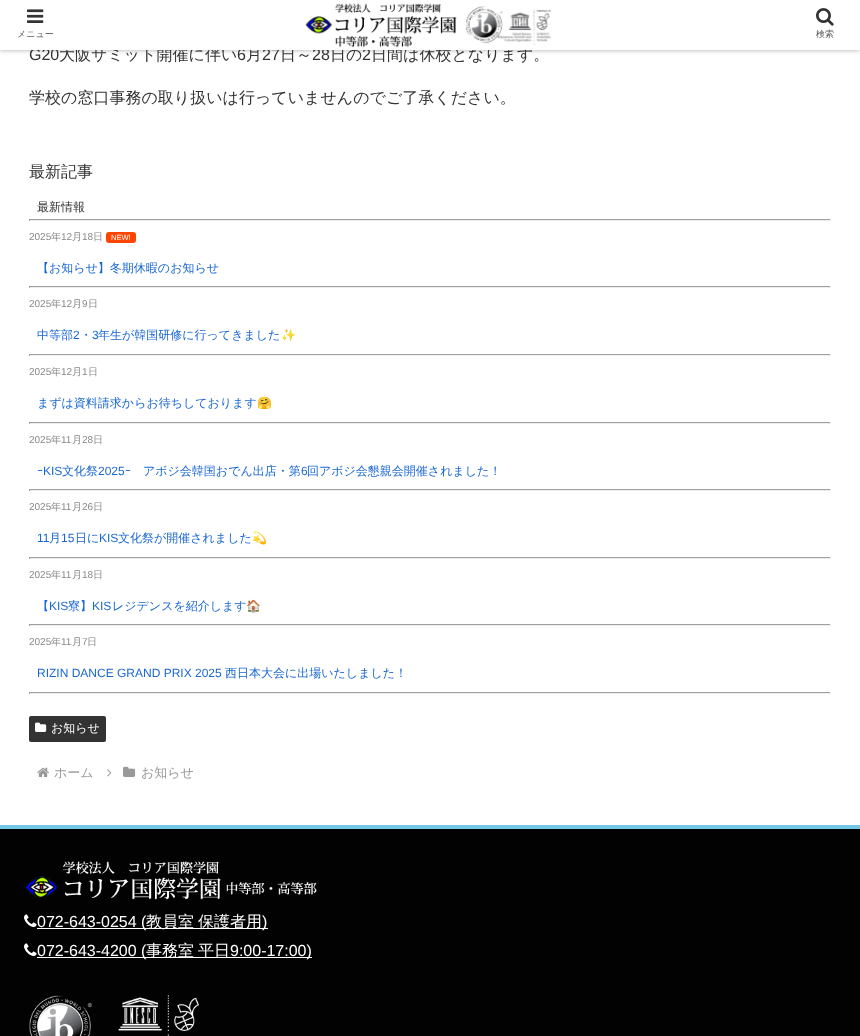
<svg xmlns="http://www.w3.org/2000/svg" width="860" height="1036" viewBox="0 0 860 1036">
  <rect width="100%" height="100%" fill="rgb(255,255,255)"/>
  <rect x="0" y="0" width="860" height="50" fill="rgb(169,169,169)" filter="blur(2.5px)"/>
  <text x="29" y="60" font-family="Liberation Sans" font-size="16" fill="rgb(51,51,51)">G20</text>
  <text x="59" y="60" font-family="WenQuanYi Zen Hei" font-size="16" font-weight="500" fill="rgb(51,51,51)">大阪サミット開催に伴い</text>
  <text x="237" y="60" font-family="Liberation Sans" font-size="16" fill="rgb(51,51,51)">6</text>
  <text x="246" y="60" font-family="WenQuanYi Zen Hei" font-size="16" font-weight="500" fill="rgb(51,51,51)">月</text>
  <text x="262" y="60" font-family="Liberation Sans" font-size="16" fill="rgb(51,51,51)">27</text>
  <text x="280" y="60" font-family="WenQuanYi Zen Hei" font-size="16" font-weight="500" fill="rgb(51,51,51)">日～</text>
  <text x="312" y="60" font-family="Liberation Sans" font-size="16" fill="rgb(51,51,51)">28</text>
  <text x="330" y="60" font-family="WenQuanYi Zen Hei" font-size="16" font-weight="500" fill="rgb(51,51,51)">日の</text>
  <text x="362" y="60" font-family="Liberation Sans" font-size="16" fill="rgb(51,51,51)">2</text>
  <text x="371" y="60" font-family="WenQuanYi Zen Hei" font-size="16" font-weight="500" fill="rgb(51,51,51)">日間は休校となります。</text>
  <rect x="0" y="0" width="860" height="50" fill="rgb(255,255,255)"/>
  <image x="27" y="9" width="17" height="14" href="pic1.png"/>
  <text x="17" y="37" font-family="WenQuanYi Zen Hei" font-size="9" font-weight="500" fill="rgb(92,92,92)">メニュー</text>
  <image x="305" y="3" width="246" height="45" href="pic2.png"/>
  <image x="816" y="8" width="18" height="18" href="pic3.png"/>
  <text x="816" y="37" font-family="WenQuanYi Zen Hei" font-size="9" font-weight="500" fill="rgb(92,92,92)">検索</text>
  <g font-family="WenQuanYi Zen Hei" font-size="16" font-weight="500" fill="rgb(51,51,51)">
    <text x="29" y="103">学校の窓口事務の取り扱いは行っていませんのでご了承ください。</text>
    <text x="29" y="177">最新記事</text>
  </g>
  <text x="37" y="211" font-family="WenQuanYi Zen Hei" font-size="12" font-weight="500" fill="rgb(51,51,51)">最新情報</text>
  <rect x="29" y="219" width="802" height="1" fill="rgb(159,159,159)"/>
  <rect x="830" y="219" width="1" height="2" fill="rgb(238,238,238)"/>
  <rect x="29" y="220" width="802" height="1" fill="rgb(238,238,238)"/>
  <rect x="29" y="219" width="1" height="2" fill="rgb(159,159,159)"/>
  <text x="29" y="240" font-family="Liberation Sans" font-size="10" fill="rgb(136,136,136)">2025</text>
  <text x="51" y="240" font-family="WenQuanYi Zen Hei" font-size="10" font-weight="500" fill="rgb(136,136,136)">年</text>
  <text x="61" y="240" font-family="Liberation Sans" font-size="10" fill="rgb(136,136,136)">12</text>
  <text x="72" y="240" font-family="WenQuanYi Zen Hei" font-size="10" font-weight="500" fill="rgb(136,136,136)">月</text>
  <text x="82" y="240" font-family="Liberation Sans" font-size="10" fill="rgb(136,136,136)">18</text>
  <text x="93" y="240" font-family="WenQuanYi Zen Hei" font-size="10" font-weight="500" fill="rgb(136,136,136)">日</text>
  <rect x="106" y="232" width="30" height="11" rx="3" fill="rgb(255,69,0)"/>
  <text x="111" y="240" font-family="Liberation Sans" font-size="7.5" fill="rgb(255,255,255)">NEW!</text>
  <text x="37" y="272" font-family="WenQuanYi Zen Hei" font-size="12" font-weight="500" fill="rgb(25,103,210)">【お知らせ】冬期休暇のお知らせ</text>
  <rect x="29" y="286" width="802" height="1" fill="rgb(159,159,159)"/>
  <rect x="830" y="286" width="1" height="2" fill="rgb(238,238,238)"/>
  <rect x="29" y="287" width="802" height="1" fill="rgb(238,238,238)"/>
  <rect x="29" y="286" width="1" height="2" fill="rgb(159,159,159)"/>
  <text x="29" y="307" font-family="Liberation Sans" font-size="10" fill="rgb(136,136,136)">2025</text>
  <text x="51" y="307" font-family="WenQuanYi Zen Hei" font-size="10" font-weight="500" fill="rgb(136,136,136)">年</text>
  <text x="61" y="307" font-family="Liberation Sans" font-size="10" fill="rgb(136,136,136)">12</text>
  <text x="72" y="307" font-family="WenQuanYi Zen Hei" font-size="10" font-weight="500" fill="rgb(136,136,136)">月</text>
  <text x="82" y="307" font-family="Liberation Sans" font-size="10" fill="rgb(136,136,136)">9</text>
  <text x="88" y="307" font-family="WenQuanYi Zen Hei" font-size="10" font-weight="500" fill="rgb(136,136,136)">日</text>
  <text x="37" y="339" font-family="WenQuanYi Zen Hei" font-size="12" font-weight="500" fill="rgb(25,103,210)">中等部</text>
  <text x="73" y="339" font-family="Liberation Sans" font-size="12" fill="rgb(25,103,210)">2</text>
  <text x="80" y="339" font-family="WenQuanYi Zen Hei" font-size="12" font-weight="500" fill="rgb(25,103,210)">・</text>
  <text x="92" y="339" font-family="Liberation Sans" font-size="12" fill="rgb(25,103,210)">3</text>
  <text x="98" y="339" font-family="WenQuanYi Zen Hei" font-size="12" font-weight="500" fill="rgb(25,103,210)">年生が韓国研修に行ってきました</text>
  <text x="281" y="339" font-family="Noto Color Emoji" font-size="12" fill="rgb(25,103,210)">✨</text>
  <rect x="29" y="354" width="802" height="1" fill="rgb(159,159,159)"/>
  <rect x="830" y="354" width="1" height="2" fill="rgb(238,238,238)"/>
  <rect x="29" y="355" width="802" height="1" fill="rgb(238,238,238)"/>
  <rect x="29" y="354" width="1" height="2" fill="rgb(159,159,159)"/>
  <text x="29" y="375" font-family="Liberation Sans" font-size="10" fill="rgb(136,136,136)">2025</text>
  <text x="51" y="375" font-family="WenQuanYi Zen Hei" font-size="10" font-weight="500" fill="rgb(136,136,136)">年</text>
  <text x="61" y="375" font-family="Liberation Sans" font-size="10" fill="rgb(136,136,136)">12</text>
  <text x="72" y="375" font-family="WenQuanYi Zen Hei" font-size="10" font-weight="500" fill="rgb(136,136,136)">月</text>
  <text x="82" y="375" font-family="Liberation Sans" font-size="10" fill="rgb(136,136,136)">1</text>
  <text x="88" y="375" font-family="WenQuanYi Zen Hei" font-size="10" font-weight="500" fill="rgb(136,136,136)">日</text>
  <text x="37" y="407" font-family="WenQuanYi Zen Hei" font-size="12" font-weight="500" fill="rgb(25,103,210)">まずは資料請求からお待ちしております</text>
  <text x="257" y="407" font-family="Noto Color Emoji" font-size="12" fill="rgb(25,103,210)">🤗</text>
  <rect x="29" y="422" width="802" height="1" fill="rgb(159,159,159)"/>
  <rect x="830" y="422" width="1" height="2" fill="rgb(238,238,238)"/>
  <rect x="29" y="423" width="802" height="1" fill="rgb(238,238,238)"/>
  <rect x="29" y="422" width="1" height="2" fill="rgb(159,159,159)"/>
  <text x="29" y="443" font-family="Liberation Sans" font-size="10" fill="rgb(136,136,136)">2025</text>
  <text x="51" y="443" font-family="WenQuanYi Zen Hei" font-size="10" font-weight="500" fill="rgb(136,136,136)">年</text>
  <text x="61" y="443" font-family="Liberation Sans" font-size="10" fill="rgb(136,136,136)">11</text>
  <text x="72" y="443" font-family="WenQuanYi Zen Hei" font-size="10" font-weight="500" fill="rgb(136,136,136)">月</text>
  <text x="82" y="443" font-family="Liberation Sans" font-size="10" fill="rgb(136,136,136)">28</text>
  <text x="93" y="443" font-family="WenQuanYi Zen Hei" font-size="10" font-weight="500" fill="rgb(136,136,136)">日</text>
  <text x="37" y="475" font-family="IPAPGothic" font-size="12" fill="rgb(25,103,210)">ｰ</text>
  <text x="43" y="475" font-family="Liberation Sans" font-size="12" fill="rgb(25,103,210)">KIS</text>
  <text x="62" y="475" font-family="WenQuanYi Zen Hei" font-size="12" font-weight="500" fill="rgb(25,103,210)">文化祭</text>
  <text x="98" y="475" font-family="Liberation Sans" font-size="12" fill="rgb(25,103,210)">2025</text>
  <text x="125" y="475" font-family="IPAPGothic" font-size="12" fill="rgb(25,103,210)">ｰ</text>
  <text x="143" y="475" font-family="WenQuanYi Zen Hei" font-size="12" font-weight="500" fill="rgb(25,103,210)">アボジ会韓国おでん出店・第</text>
  <text x="301" y="475" font-family="Liberation Sans" font-size="12" fill="rgb(25,103,210)">6</text>
  <text x="307" y="475" font-family="WenQuanYi Zen Hei" font-size="12" font-weight="500" fill="rgb(25,103,210)">回アボジ会懇親会開催されました！</text>
  <rect x="29" y="489" width="802" height="1" fill="rgb(159,159,159)"/>
  <rect x="830" y="489" width="1" height="2" fill="rgb(238,238,238)"/>
  <rect x="29" y="490" width="802" height="1" fill="rgb(238,238,238)"/>
  <rect x="29" y="489" width="1" height="2" fill="rgb(159,159,159)"/>
  <text x="29" y="510" font-family="Liberation Sans" font-size="10" fill="rgb(136,136,136)">2025</text>
  <text x="51" y="510" font-family="WenQuanYi Zen Hei" font-size="10" font-weight="500" fill="rgb(136,136,136)">年</text>
  <text x="61" y="510" font-family="Liberation Sans" font-size="10" fill="rgb(136,136,136)">11</text>
  <text x="72" y="510" font-family="WenQuanYi Zen Hei" font-size="10" font-weight="500" fill="rgb(136,136,136)">月</text>
  <text x="82" y="510" font-family="Liberation Sans" font-size="10" fill="rgb(136,136,136)">26</text>
  <text x="93" y="510" font-family="WenQuanYi Zen Hei" font-size="10" font-weight="500" fill="rgb(136,136,136)">日</text>
  <text x="37" y="542" font-family="Liberation Sans" font-size="12" fill="rgb(25,103,210)">11</text>
  <text x="49" y="542" font-family="WenQuanYi Zen Hei" font-size="12" font-weight="500" fill="rgb(25,103,210)">月</text>
  <text x="61" y="542" font-family="Liberation Sans" font-size="12" fill="rgb(25,103,210)">15</text>
  <text x="75" y="542" font-family="WenQuanYi Zen Hei" font-size="12" font-weight="500" fill="rgb(25,103,210)">日に</text>
  <text x="99" y="542" font-family="Liberation Sans" font-size="12" fill="rgb(25,103,210)">KIS</text>
  <text x="118" y="542" font-family="WenQuanYi Zen Hei" font-size="12" font-weight="500" fill="rgb(25,103,210)">文化祭が開催されました</text>
  <text x="252" y="542" font-family="Noto Color Emoji" font-size="12" fill="rgb(25,103,210)">💫</text>
  <rect x="29" y="557" width="802" height="1" fill="rgb(159,159,159)"/>
  <rect x="830" y="557" width="1" height="2" fill="rgb(238,238,238)"/>
  <rect x="29" y="558" width="802" height="1" fill="rgb(238,238,238)"/>
  <rect x="29" y="557" width="1" height="2" fill="rgb(159,159,159)"/>
  <text x="29" y="578" font-family="Liberation Sans" font-size="10" fill="rgb(136,136,136)">2025</text>
  <text x="51" y="578" font-family="WenQuanYi Zen Hei" font-size="10" font-weight="500" fill="rgb(136,136,136)">年</text>
  <text x="61" y="578" font-family="Liberation Sans" font-size="10" fill="rgb(136,136,136)">11</text>
  <text x="72" y="578" font-family="WenQuanYi Zen Hei" font-size="10" font-weight="500" fill="rgb(136,136,136)">月</text>
  <text x="82" y="578" font-family="Liberation Sans" font-size="10" fill="rgb(136,136,136)">18</text>
  <text x="93" y="578" font-family="WenQuanYi Zen Hei" font-size="10" font-weight="500" fill="rgb(136,136,136)">日</text>
  <text x="37" y="610" font-family="WenQuanYi Zen Hei" font-size="12" font-weight="500" fill="rgb(25,103,210)">【</text>
  <text x="49" y="610" font-family="Liberation Sans" font-size="12" fill="rgb(25,103,210)">KIS</text>
  <text x="68" y="610" font-family="WenQuanYi Zen Hei" font-size="12" font-weight="500" fill="rgb(25,103,210)">寮】</text>
  <text x="92" y="610" font-family="Liberation Sans" font-size="12" fill="rgb(25,103,210)">KIS</text>
  <text x="112" y="610" font-family="WenQuanYi Zen Hei" font-size="12" font-weight="500" fill="rgb(25,103,210)">レジデンスを紹介します</text>
  <text x="246" y="610" font-family="Noto Color Emoji" font-size="12" fill="rgb(25,103,210)">🏠</text>
  <rect x="29" y="624" width="802" height="1" fill="rgb(159,159,159)"/>
  <rect x="830" y="624" width="1" height="2" fill="rgb(238,238,238)"/>
  <rect x="29" y="625" width="802" height="1" fill="rgb(238,238,238)"/>
  <rect x="29" y="624" width="1" height="2" fill="rgb(159,159,159)"/>
  <text x="29" y="645" font-family="Liberation Sans" font-size="10" fill="rgb(136,136,136)">2025</text>
  <text x="51" y="645" font-family="WenQuanYi Zen Hei" font-size="10" font-weight="500" fill="rgb(136,136,136)">年</text>
  <text x="61" y="645" font-family="Liberation Sans" font-size="10" fill="rgb(136,136,136)">11</text>
  <text x="72" y="645" font-family="WenQuanYi Zen Hei" font-size="10" font-weight="500" fill="rgb(136,136,136)">月</text>
  <text x="82" y="645" font-family="Liberation Sans" font-size="10" fill="rgb(136,136,136)">7</text>
  <text x="87" y="645" font-family="WenQuanYi Zen Hei" font-size="10" font-weight="500" fill="rgb(136,136,136)">日</text>
  <text x="37" y="677" font-family="Liberation Sans" font-size="12" fill="rgb(25,103,210)">RIZIN DANCE GRAND PRIX 2025</text>
  <text x="225" y="677" font-family="WenQuanYi Zen Hei" font-size="12" font-weight="500" fill="rgb(25,103,210)">西日本大会に出場いたしました！</text>
  <rect x="29" y="692" width="802" height="1" fill="rgb(159,159,159)"/>
  <rect x="830" y="692" width="1" height="2" fill="rgb(238,238,238)"/>
  <rect x="29" y="693" width="802" height="1" fill="rgb(238,238,238)"/>
  <rect x="29" y="692" width="1" height="2" fill="rgb(159,159,159)"/>
  <rect x="29" y="716" width="77" height="26" rx="2" fill="rgb(51,51,51)"/>
  <image x="35" y="722" width="12" height="10" href="pic4.png"/>
  <text x="51" y="732" font-family="WenQuanYi Zen Hei" font-size="12" font-weight="500" fill="rgb(255,255,255)">お知らせ</text>
  <image x="37" y="767" width="12" height="10" href="pic5.png"/>
  <text x="54" y="777" font-family="WenQuanYi Zen Hei" font-size="13" font-weight="500" fill="rgb(153,153,153)">ホーム</text>
  <image x="107" y="769" width="5" height="8" href="pic6.png"/>
  <image x="123" y="766" width="13" height="11" href="pic7.png"/>
  <text x="141" y="777" font-family="WenQuanYi Zen Hei" font-size="13" font-weight="500" fill="rgb(153,153,153)">お知らせ</text>
  <rect x="0" y="829" width="860" height="207" fill="rgb(2,2,2)"/>
  <rect x="0" y="825" width="860" height="4" fill="rgb(114,199,230)"/>
  <image x="24" y="861" width="293" height="39" href="pic8.png"/>
  <image x="24" y="914" width="13" height="13" href="pic9.png"/>
  <rect x="37" y="928" width="231" height="1" fill="rgb(255,255,255)"/>
  <text x="37" y="927" font-family="Liberation Sans" font-size="16" fill="rgb(255,255,255)">072-643-0254 (</text>
  <g font-family="WenQuanYi Zen Hei" font-size="16" font-weight="500" fill="rgb(255,255,255)">
    <text x="146" y="927">教員室</text>
    <text x="198" y="927">保護者用</text>
  </g>
  <text x="262" y="927" font-family="Liberation Sans" font-size="16" fill="rgb(255,255,255)">)</text>
  <image x="24" y="943" width="13" height="13" href="pic9.png"/>
  <rect x="37" y="957" width="275" height="1" fill="rgb(255,255,255)"/>
  <text x="37" y="956" font-family="Liberation Sans" font-size="16" fill="rgb(255,255,255)">072-643-4200 (</text>
  <g font-family="WenQuanYi Zen Hei" font-size="16" font-weight="500" fill="rgb(255,255,255)">
    <text x="146" y="956">事務室</text>
    <text x="198" y="956">平日</text>
  </g>
  <text x="230" y="956" font-family="Liberation Sans" font-size="16" fill="rgb(255,255,255)">9:00-17:00)</text>
  <image x="29" y="995" width="170" height="41" href="pic10.png"/>
</svg>
